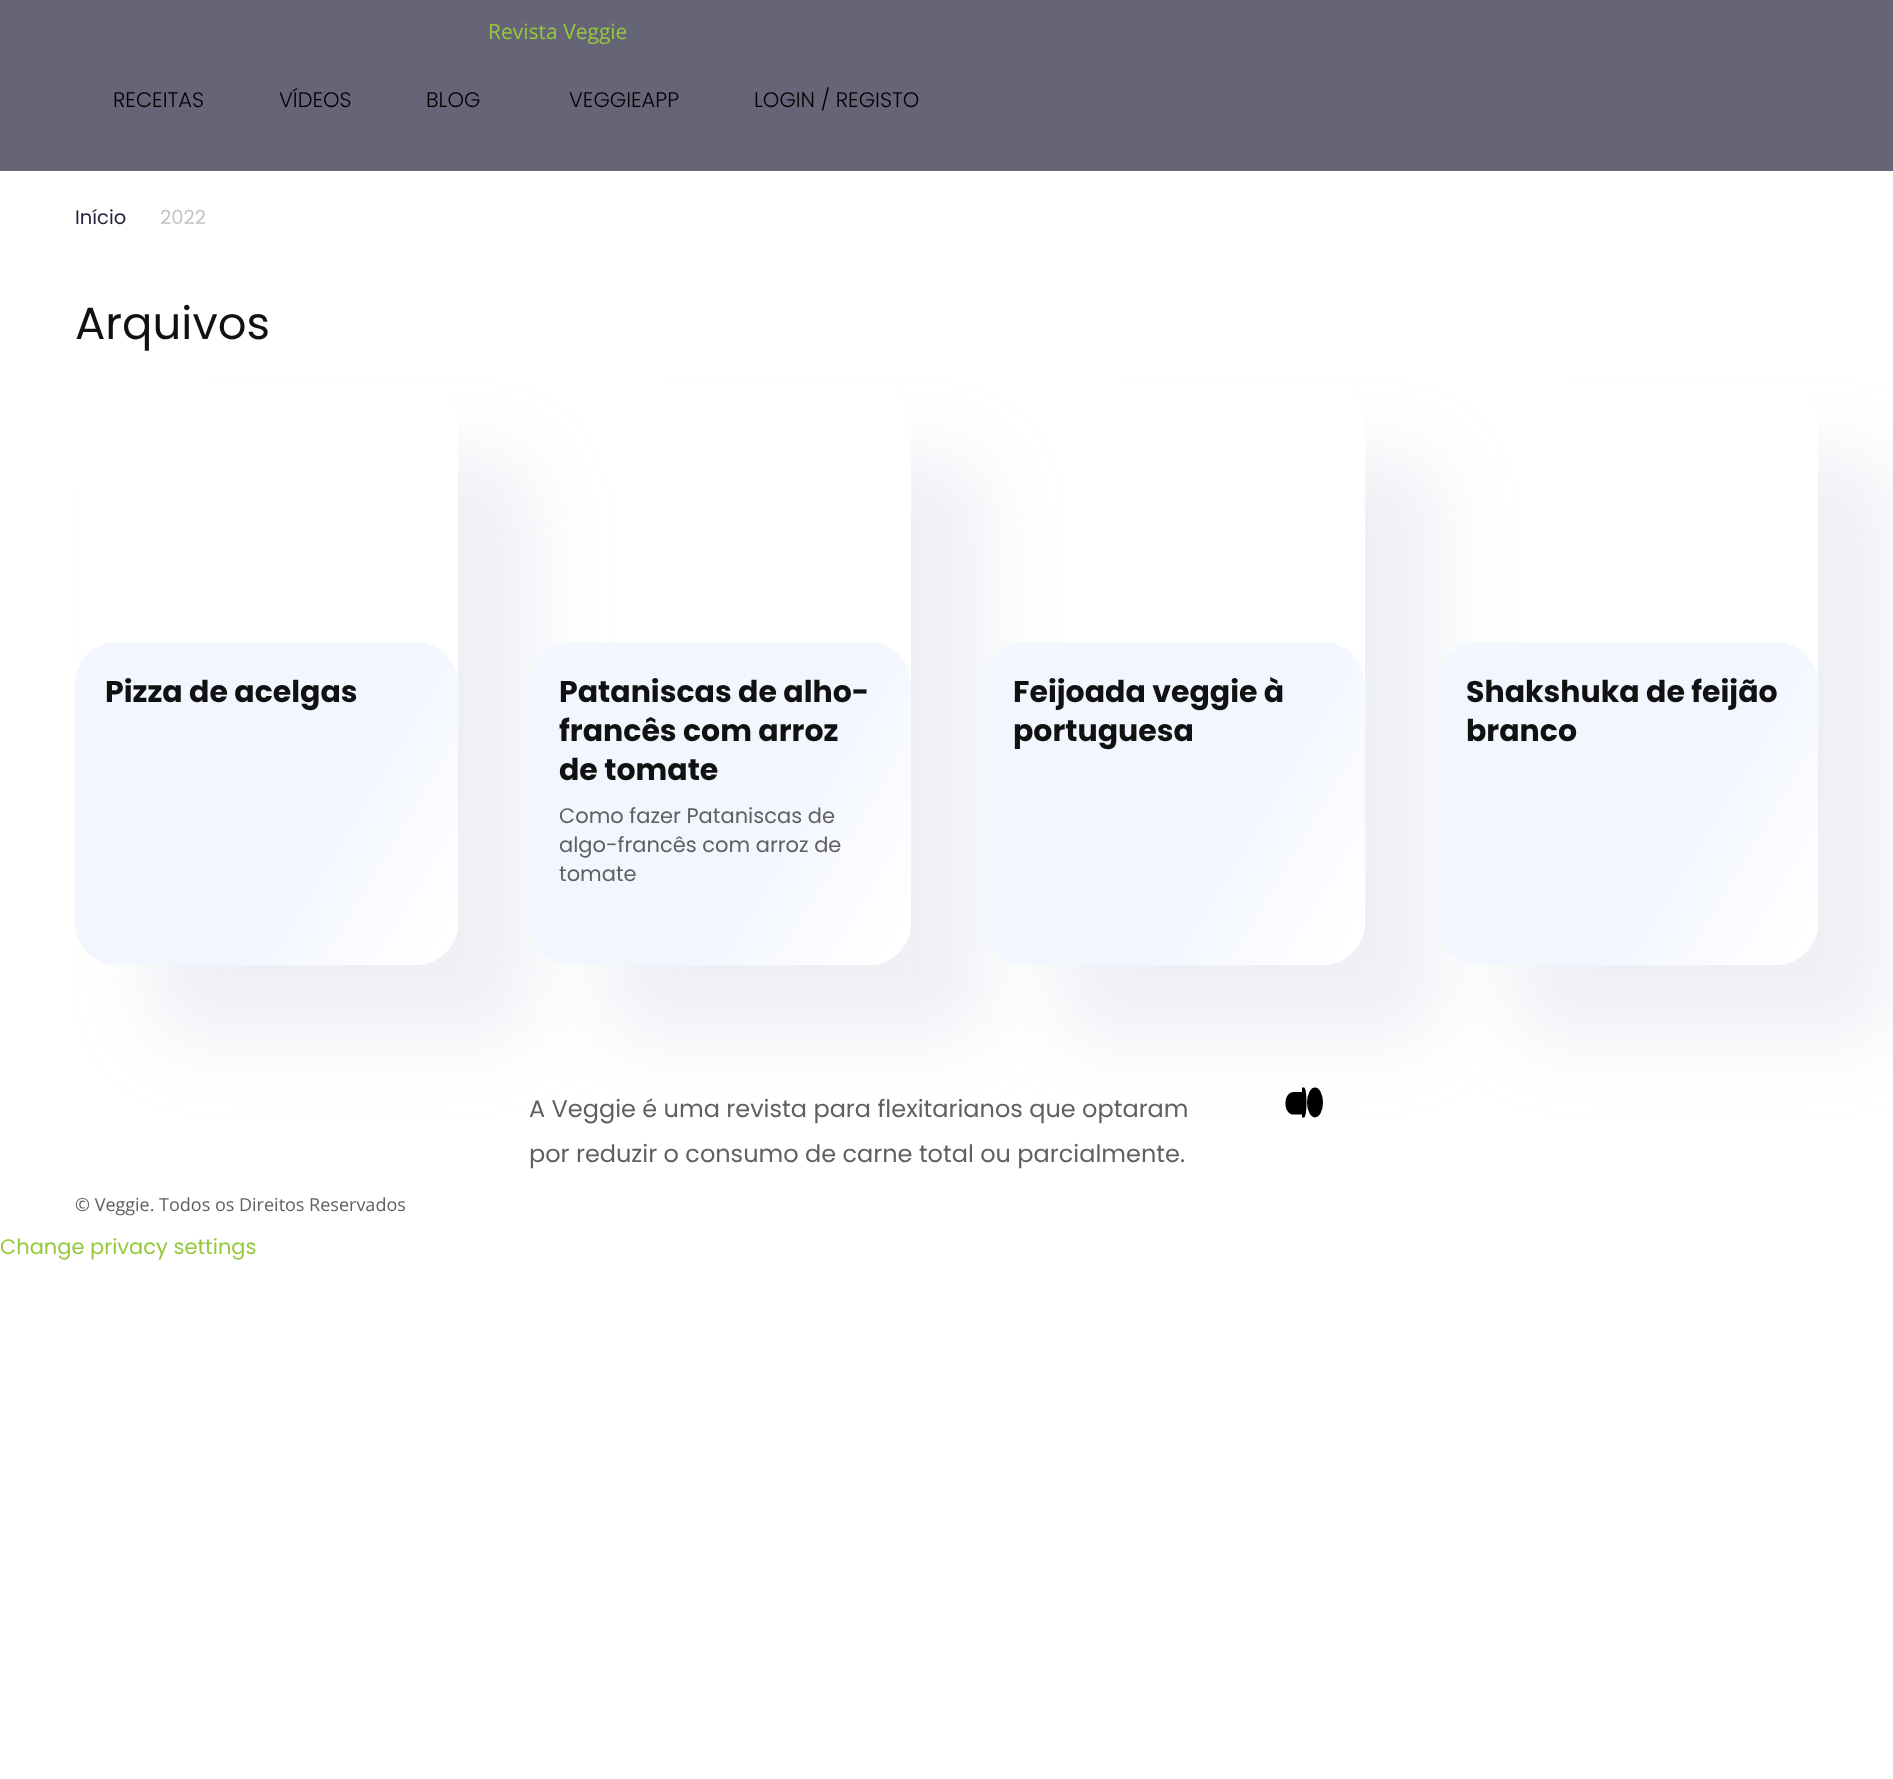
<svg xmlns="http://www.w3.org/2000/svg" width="1893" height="1779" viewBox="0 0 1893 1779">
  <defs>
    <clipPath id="clip1"><path d="M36 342H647V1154H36ZM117 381H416C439 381 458 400 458 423V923C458 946 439 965 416 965H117C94 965 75 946 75 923V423C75 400 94 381 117 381Z" clip-rule="evenodd"/></clipPath>
    <linearGradient id="g1" gradientUnits="userSpaceOnUse" x1="55" y1="676" x2="478" y2="930"><stop offset="0.2" stop-color="rgb(242,246,255)"/><stop offset="0.61" stop-color="rgb(242,246,255)"/><stop offset="0.95" stop-color="rgb(255,255,255)"/></linearGradient>
    <clipPath id="clip2"><path d="M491 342H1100V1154H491ZM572 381H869C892 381 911 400 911 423V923C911 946 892 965 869 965H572C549 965 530 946 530 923V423C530 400 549 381 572 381Z" clip-rule="evenodd"/></clipPath>
    <linearGradient id="g2" gradientUnits="userSpaceOnUse" x1="509" y1="676" x2="931" y2="930"><stop offset="0.2" stop-color="rgb(242,246,255)"/><stop offset="0.61" stop-color="rgb(242,246,255)"/><stop offset="0.95" stop-color="rgb(255,255,255)"/></linearGradient>
    <clipPath id="clip3"><path d="M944 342H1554V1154H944ZM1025 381H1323C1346 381 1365 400 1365 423V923C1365 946 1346 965 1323 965H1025C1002 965 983 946 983 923V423C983 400 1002 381 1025 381Z" clip-rule="evenodd"/></clipPath>
    <linearGradient id="g3" gradientUnits="userSpaceOnUse" x1="962" y1="676" x2="1385" y2="930"><stop offset="0.2" stop-color="rgb(242,246,255)"/><stop offset="0.61" stop-color="rgb(242,246,255)"/><stop offset="0.95" stop-color="rgb(255,255,255)"/></linearGradient>
    <clipPath id="clip4"><path d="M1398 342H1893V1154H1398ZM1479 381H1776C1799 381 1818 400 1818 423V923C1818 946 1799 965 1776 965H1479C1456 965 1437 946 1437 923V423C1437 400 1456 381 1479 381Z" clip-rule="evenodd"/></clipPath>
    <linearGradient id="g4" gradientUnits="userSpaceOnUse" x1="1416" y1="676" x2="1839" y2="930"><stop offset="0.2" stop-color="rgb(242,246,255)"/><stop offset="0.61" stop-color="rgb(242,246,255)"/><stop offset="0.95" stop-color="rgb(255,255,255)"/></linearGradient>
  </defs>
  <rect width="100%" height="100%" fill="rgb(255,255,255)"/>
  <rect x="0" y="0" width="1893" height="171" fill="rgb(101,101,119)"/>
  <text x="488" y="39" font-family="Open Sans" font-size="21" fill="rgb(149,201,61)">Revista Veggie</text>
  <g font-family="Poppins" font-size="21" font-weight="300" fill="rgb(0,0,0)">
    <text x="113" y="107">RECEITAS</text>
    <text x="279" y="107">VÍDEOS</text>
    <text x="426" y="107">BLOG</text>
    <text x="569" y="107">VEGGIEAPP</text>
    <text x="754" y="107">LOGIN / REGISTO</text>
  </g>
  <text x="75" y="224" font-family="Poppins" font-size="19.5" fill="rgb(35,35,60)">Início</text>
  <text x="160" y="224" font-family="Poppins" font-size="19.5" fill="rgb(195,195,195)">2022</text>
  <text x="75" y="339" font-family="Poppins" font-size="45" fill="rgb(17,17,17)">Arquivos</text>
  <g clip-path="url(#clip1)">
    <rect x="150" y="456" width="383" height="584" rx="42" fill="rgba(171,182,204,0.2)" filter="blur(37.5px)"/>
  </g>
  <rect x="75" y="642" width="383" height="323" rx="42" fill="url(#g1)"/>
  <text x="105" y="702" font-family="Poppins" font-size="30" font-weight="bold" fill="rgb(17,17,17)">Pizza de acelgas</text>
  <g clip-path="url(#clip2)">
    <rect x="605" y="456" width="381" height="584" rx="42" fill="rgba(171,182,204,0.2)" filter="blur(37.5px)"/>
  </g>
  <rect x="530" y="642" width="381" height="323" rx="42" fill="url(#g2)"/>
  <g font-family="Poppins" font-size="30" font-weight="bold" fill="rgb(17,17,17)">
    <text>
      <tspan x="559" y="702">Pataniscas de alho-</tspan>
      <tspan x="559" y="741">francês com arroz</tspan>
      <tspan x="559" y="780">de tomate</tspan>
    </text>
  </g>
  <g font-family="Poppins" font-size="21" fill="rgb(96,96,96)">
    <text>
      <tspan x="559" y="823">Como fazer Pataniscas de</tspan>
      <tspan x="559" y="852">algo-francês com arroz de</tspan>
      <tspan x="559" y="881">tomate</tspan>
    </text>
  </g>
  <g clip-path="url(#clip3)">
    <rect x="1058" y="456" width="382" height="584" rx="42" fill="rgba(171,182,204,0.2)" filter="blur(37.5px)"/>
  </g>
  <rect x="983" y="642" width="382" height="323" rx="42" fill="url(#g3)"/>
  <g font-family="Poppins" font-size="30" font-weight="bold" fill="rgb(17,17,17)">
    <text>
      <tspan x="1013" y="702">Feijoada veggie à</tspan>
      <tspan x="1013" y="741">portuguesa</tspan>
    </text>
  </g>
  <g clip-path="url(#clip4)">
    <rect x="1512" y="456" width="381" height="584" rx="42" fill="rgba(171,182,204,0.2)" filter="blur(37.5px)"/>
  </g>
  <rect x="1437" y="642" width="381" height="323" rx="42" fill="url(#g4)"/>
  <g font-family="Poppins" font-size="30" font-weight="bold" fill="rgb(17,17,17)">
    <text>
      <tspan x="1466" y="702">Shakshuka de feijão</tspan>
      <tspan x="1466" y="741">branco</tspan>
    </text>
  </g>
  <g font-family="Poppins" font-size="24" fill="rgb(96,96,96)">
    <text>
      <tspan x="529" y="1117">A Veggie é uma revista para flexitarianos que optaram</tspan>
      <tspan x="529" y="1162">por reduzir o consumo de carne total ou parcialmente.</tspan>
    </text>
  </g>
  <path d="M1294 1092H1302V1114.5H1292C1282.5 1111.5 1283.5 1092 1294 1092ZM1302 1087.5H1304C1305.5 1087.5 1306.5 1094 1306.5 1102.5C1306.5 1111 1305.5 1117.5 1304 1117.5H1302Z" fill="rgb(0,0,0)"/>
  <ellipse cx="1315" cy="1102.5" rx="8" ry="15" fill="rgb(0,0,0)"/>
  <text x="75" y="1211" font-family="Open Sans" font-size="18" fill="rgb(96,96,96)">© Veggie. Todos os Direitos Reservados</text>
  <text x="0" y="1254" font-family="Poppins" font-size="21" fill="rgb(149,201,61)">Change privacy settings</text>
</svg>
